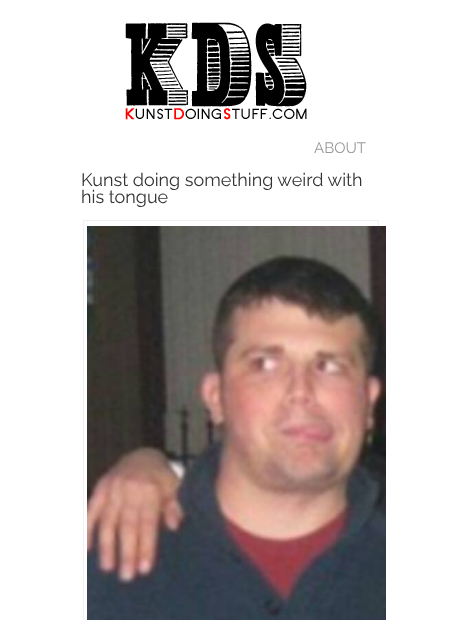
<svg xmlns="http://www.w3.org/2000/svg" width="461" height="620" viewBox="0 0 461 620">
  <rect width="100%" height="100%" fill="rgb(255,255,255)"/>
  <image x="125" y="22" width="182" height="98" href="pic1.png"/>
  <text x="314" y="153" font-family="Raleway" font-size="15" fill="rgb(153,153,153)">ABOUT</text>
  <g font-family="Raleway" font-size="18" fill="rgb(51,51,51)">
    <text>
      <tspan x="81" y="186">Kunst doing something weird with</tspan>
      <tspan x="81" y="203">his tongue</tspan>
    </text>
  </g>
  <rect x="83.5" y="220.5" width="295" height="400" fill="none" stroke="rgb(240,240,240)"/>
  <image x="87" y="226" width="299" height="394" href="pic2.png"/>
</svg>
